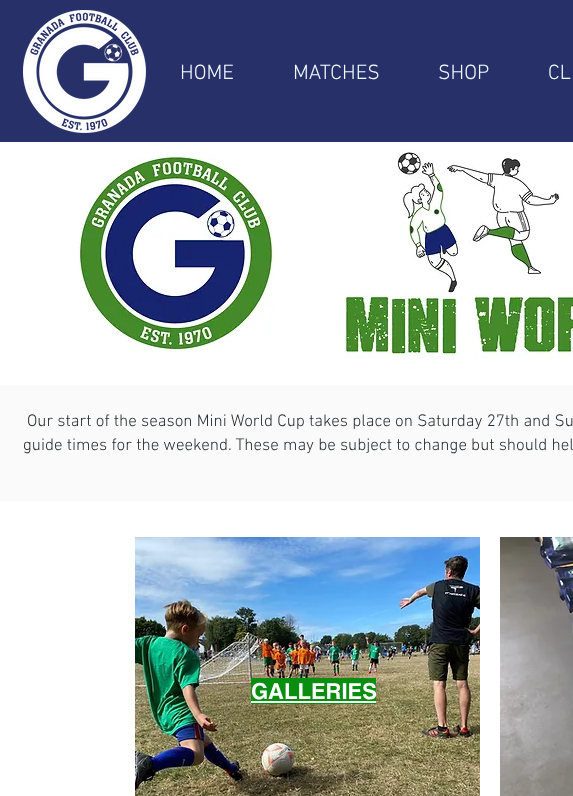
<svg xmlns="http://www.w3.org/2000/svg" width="573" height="796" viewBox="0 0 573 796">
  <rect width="100%" height="100%" fill="rgb(255,255,255)"/>
  <rect x="0" y="0" width="573" height="142" fill="rgb(39,48,104)"/>
  <image x="23" y="10" width="123" height="123" href="pic1.png"/>
  <g font-family="'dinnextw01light'" font-size="21" font-weight="300" fill="rgb(240,250,255)">
    <text x="180" y="79">HOME</text>
    <text x="293" y="79">MATCHES</text>
    <text x="438" y="79">SHOP</text>
    <text x="548" y="79">CL</text>
  </g>
  <image x="77" y="150" width="496" height="208" href="pic2.png"/>
  <rect x="0" y="385" width="573" height="116" fill="rgb(250,250,250)"/>
  <g font-family="'dinnextw01light'" font-size="17" font-weight="300" fill="rgb(41,47,51)">
    <text x="27" y="426">Our start of the season Mini World Cup takes place on Saturday 27th and Su</text>
    <text x="23" y="450">guide times for the weekend. These may be subject to change but should hel</text>
  </g>
  <image x="135" y="537" width="345" height="259" href="pic3.png"/>
  <rect x="251" y="678" width="125" height="26" fill="rgb(9,142,16)"/>
  <text x="251" y="699" font-family="helvetica" font-size="22" font-weight="bold" fill="rgb(255,255,255)">GALLERIES</text>
  <rect x="251" y="701" width="125" height="2" fill="rgb(255,255,255)"/>
  <image x="500" y="537" width="73" height="259" href="pic4.png"/>
</svg>
